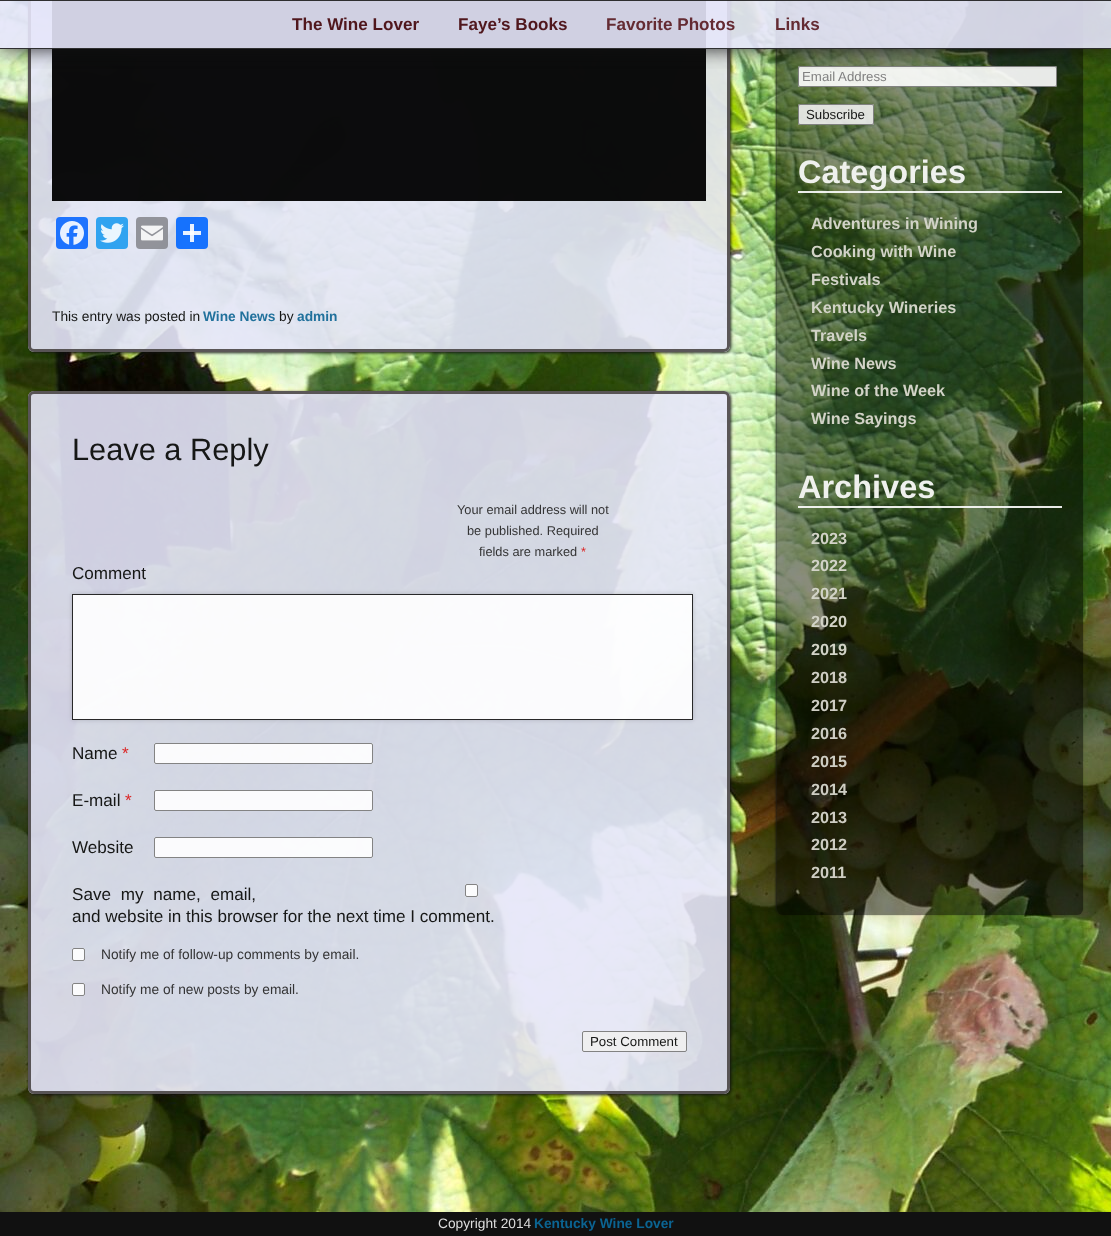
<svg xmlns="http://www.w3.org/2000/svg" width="1111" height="1236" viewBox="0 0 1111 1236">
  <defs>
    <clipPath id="clip1"><path d="M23 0H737V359H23ZM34-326H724C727.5-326 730-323.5 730-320V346C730 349.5 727.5 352 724 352H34C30.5 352 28 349.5 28 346V-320C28-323.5 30.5-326 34-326Z" clip-rule="evenodd"/></clipPath>
    <clipPath id="clip2"><path d="M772 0H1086V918H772ZM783-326H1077C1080.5-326 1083-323.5 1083-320V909C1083 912.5 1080.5 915 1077 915H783C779.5 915 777 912.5 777 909V-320C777-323.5 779.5-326 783-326Z" clip-rule="evenodd"/></clipPath>
    <clipPath id="clip3"><rect x="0" y="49" width="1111" height="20"/></clipPath>
    <clipPath id="clip4"><path d="M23 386H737V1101H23ZM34 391H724C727.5 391 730 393.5 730 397V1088C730 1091.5 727.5 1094 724 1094H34C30.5 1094 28 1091.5 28 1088V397C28 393.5 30.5 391 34 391Z" clip-rule="evenodd"/></clipPath>
    <clipPath id="clip5"><path d="M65 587H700V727H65ZM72 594H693V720H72Z" clip-rule="evenodd"/></clipPath>
  </defs>
  <rect width="100%" height="100%" fill="rgb(255,255,255)"/>
  <image x="0" y="0" width="1111" height="1212" href="pic1.png"/>
  <g clip-path="url(#clip1)">
    <rect x="29" y="-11" width="702" height="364" rx="6" fill="rgba(17,17,17,0.9)" filter="blur(1.5px)"/>
  </g>
  <rect x="28" y="-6" width="702" height="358" rx="6" fill="rgba(230,230,250,0.9)"/>
  <rect x="29.5" y="-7.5" width="699" height="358" rx="4.5" fill="none" stroke="rgba(74,70,70,0.9)" stroke-width="3"/>
  <rect x="52" y="0" width="654" height="201" fill="rgba(0,0,0,0.9)"/>
  <rect x="52" y="0" width="654" height="201" fill="rgba(0,0,0,0.45)"/>
  <g clip-path="url(#clip2)">
    <rect x="776" y="-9" width="306" height="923" rx="6" fill="rgba(17,17,17,0.9)" filter="blur(1px)"/>
  </g>
  <rect x="777" y="-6" width="306" height="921" rx="6" fill="rgba(0,0,0,0.45)"/>
  <rect x="798" y="66" width="259" height="21" rx="2" fill="rgba(255,255,255,0.9)"/>
  <rect x="798.5" y="66.5" width="258" height="20" rx="1.5" fill="none" stroke="rgba(118,118,118,0.9)"/>
  <g clip-path="url(#clip3)">
    <rect x="0" y="0" width="1111" height="49" fill="rgba(17,17,17,0.9)" filter="blur(10px)"/>
  </g>
  <rect x="0" y="0" width="1111" height="49" fill="rgba(230,230,249,0.9)"/>
  <rect x="0" y="0" width="1111" height="1" fill="rgba(28,28,28,0.9)"/>
  <rect x="0" y="48" width="1111" height="1" fill="rgba(28,28,28,0.9)"/>
  <g font-family="Liberation Sans" font-size="17.1" font-weight="bold" fill="rgb(80,23,29)">
    <text x="292" y="30">The Wine Lover</text>
    <text x="458" y="30">Faye’s Books</text>
  </g>
  <g font-family="Liberation Sans" font-size="17.1" font-weight="bold" fill="rgb(100,43,51)">
    <text x="606" y="30">Favorite Photos</text>
    <text x="775" y="30">Links</text>
  </g>
  <rect x="56" y="217" width="32" height="32" rx="4" fill="rgba(8,102,255,0.9)"/>
  <image x="60" y="221" width="24" height="24" href="pic2.png"/>
  <rect x="96" y="217" width="32" height="32" rx="4" fill="rgba(29,155,240,0.9)"/>
  <image x="100" y="223" width="24" height="20" href="pic3.png"/>
  <rect x="136" y="217" width="32" height="32" rx="4" fill="rgba(136,137,144,0.9)"/>
  <image x="141" y="225" width="22" height="16" href="pic4.png"/>
  <rect x="176" y="217" width="32" height="32" rx="4" fill="rgba(1,102,255,0.9)"/>
  <rect x="190" y="224" width="4" height="18" fill="rgb(232,241,255)"/>
  <rect x="183" y="231" width="18" height="4" fill="rgba(255,255,255,0.9)"/>
  <text x="52" y="321" font-family="Liberation Sans" font-size="13.75" fill="rgb(22,23,22)">This entry was posted in</text>
  <text x="203" y="321" font-family="Liberation Sans" font-size="13.75" font-weight="bold" fill="rgb(33,113,156)">Wine News</text>
  <text x="279" y="321" font-family="Liberation Sans" font-size="13.75" fill="rgb(22,23,22)">by</text>
  <text x="297" y="321" font-family="Liberation Sans" font-size="13.75" font-weight="bold" fill="rgb(33,113,156)">admin</text>
  <text x="802" y="81" font-family="Liberation Sans" font-size="13.25" fill="rgb(129,129,129)">Email Address</text>
  <rect x="798" y="104" width="76" height="21" rx="2" fill="rgba(239,239,239,0.9)"/>
  <rect x="798.5" y="104.5" width="75" height="20" rx="1.5" fill="none" stroke="rgba(118,118,118,0.9)"/>
  <text x="806" y="119" font-family="Liberation Sans" font-size="13.25" fill="rgb(22,23,22)">Subscribe</text>
  <rect x="798" y="191" width="264" height="2" fill="rgba(255,255,255,0.9)"/>
  <text x="798" y="183" font-family="Liberation Sans" font-size="32.5" font-weight="bold" fill="rgb(239,241,237)">Categories</text>
  <g font-family="Liberation Sans" font-size="16.25" font-weight="bold" fill="rgb(210,211,199)">
    <text>
      <tspan x="811" y="229">Adventures in Wining</tspan>
      <tspan x="811" y="257">Cooking with Wine</tspan>
      <tspan x="811" y="285">Festivals</tspan>
      <tspan x="811" y="313">Kentucky Wineries</tspan>
      <tspan x="811" y="341">Travels</tspan>
      <tspan x="811" y="369">Wine News</tspan>
      <tspan x="811" y="396">Wine of the Week</tspan>
      <tspan x="811" y="424">Wine Sayings</tspan>
    </text>
  </g>
  <rect x="798" y="506" width="264" height="2" fill="rgba(255,255,255,0.9)"/>
  <text x="798" y="498" font-family="Liberation Sans" font-size="32.5" font-weight="bold" fill="rgb(239,241,237)">Archives</text>
  <g font-family="Liberation Sans" font-size="16.25" font-weight="bold" fill="rgb(210,211,199)">
    <text>
      <tspan x="811" y="544">2023</tspan>
      <tspan x="811" y="571">2022</tspan>
      <tspan x="811" y="599">2021</tspan>
      <tspan x="811" y="627">2020</tspan>
      <tspan x="811" y="655">2019</tspan>
    </text>
  </g>
  <g font-family="Liberation Sans" font-size="16.25" font-weight="bold" fill="rgb(206,205,195)">
    <text>
      <tspan x="811" y="683">2018</tspan>
      <tspan x="811" y="711">2017</tspan>
      <tspan x="811" y="739">2016</tspan>
      <tspan x="811" y="767">2015</tspan>
      <tspan x="811" y="795">2014</tspan>
      <tspan x="811" y="823">2013</tspan>
      <tspan x="811" y="850">2012</tspan>
      <tspan x="811" y="878">2011</tspan>
    </text>
  </g>
  <g clip-path="url(#clip4)">
    <rect x="29" y="392" width="702" height="703" rx="6" fill="rgba(17,17,17,0.9)" filter="blur(1.5px)"/>
  </g>
  <rect x="28" y="391" width="702" height="703" rx="6" fill="rgba(230,230,250,0.9)"/>
  <rect x="29.5" y="392.5" width="699" height="700" rx="4.5" fill="none" stroke="rgba(74,70,70,0.9)" stroke-width="3"/>
  <text x="72" y="460" font-family="Liberation Sans" font-size="30.75" fill="rgb(22,23,22)">Leave a Reply</text>
  <g font-family="Liberation Sans" font-size="12.8" fill="rgb(52,52,53)">
    <text x="457" y="514">Your email address will not</text>
    <text x="467" y="535">be published. Required</text>
    <text x="479" y="556">fields are marked</text>
  </g>
  <text x="581" y="556" font-family="Liberation Sans" font-size="12.8" fill="rgb(219,37,38)">*</text>
  <text x="72" y="579" font-family="Liberation Sans" font-size="17.1" fill="rgb(22,23,22)">Comment</text>
  <g clip-path="url(#clip5)">
    <rect x="72" y="594" width="621" height="126" fill="rgba(17,17,17,0.18)" filter="blur(2px)"/>
  </g>
  <rect x="72.5" y="594.5" width="620" height="125" fill="rgba(255,255,255,0.9)" stroke="rgb(40,40,41)"/>
  <text x="72" y="759" font-family="Liberation Sans" font-size="17.1" fill="rgb(22,23,22)">Name</text>
  <text x="122" y="759" font-family="Liberation Sans" font-size="17.1" fill="rgb(219,37,38)">*</text>
  <rect x="154" y="743" width="219" height="21" rx="2" fill="rgba(255,255,255,0.9)"/>
  <rect x="154.5" y="743.5" width="218" height="20" rx="1.5" fill="none" stroke="rgba(118,118,118,0.9)"/>
  <text x="72" y="806" font-family="Liberation Sans" font-size="17.1" fill="rgb(22,23,22)">E-mail</text>
  <text x="125" y="806" font-family="Liberation Sans" font-size="17.1" fill="rgb(219,37,38)">*</text>
  <rect x="154" y="790" width="219" height="21" rx="2" fill="rgba(255,255,255,0.9)"/>
  <rect x="154.5" y="790.5" width="218" height="20" rx="1.5" fill="none" stroke="rgba(118,118,118,0.9)"/>
  <text x="72" y="853" font-family="Liberation Sans" font-size="17.1" fill="rgb(22,23,22)">Website</text>
  <rect x="154" y="837" width="219" height="21" rx="2" fill="rgba(255,255,255,0.9)"/>
  <rect x="154.5" y="837.5" width="218" height="20" rx="1.5" fill="none" stroke="rgba(118,118,118,0.9)"/>
  <text x="72" y="900" word-spacing="5" font-family="Liberation Sans" font-size="17.1" fill="rgb(22,23,22)">Save my name, email,</text>
  <rect x="465" y="884" width="13" height="13" rx="2" fill="rgba(255,255,255,0.9)"/>
  <rect x="465.5" y="884.5" width="12" height="12" rx="1.5" fill="none" stroke="rgba(118,118,118,0.9)"/>
  <text x="72" y="922" font-family="Liberation Sans" font-size="17.1" fill="rgb(22,23,22)">and website in this browser for the next time I comment.</text>
  <rect x="72" y="948" width="13" height="13" rx="2" fill="rgba(255,255,255,0.9)"/>
  <rect x="72.5" y="948.5" width="12" height="12" rx="1.5" fill="none" stroke="rgba(118,118,118,0.9)"/>
  <text x="101" y="959" font-family="Liberation Sans" font-size="13.75" fill="rgb(52,52,53)">Notify me of follow-up comments by email.</text>
  <rect x="72" y="983" width="13" height="13" rx="2" fill="rgba(255,255,255,0.9)"/>
  <rect x="72.5" y="983.5" width="12" height="12" rx="1.5" fill="none" stroke="rgba(118,118,118,0.9)"/>
  <text x="101" y="994" font-family="Liberation Sans" font-size="13.75" fill="rgb(52,52,53)">Notify me of new posts by email.</text>
  <rect x="582" y="1031" width="105" height="21" rx="2" fill="rgba(239,239,239,0.9)"/>
  <rect x="582.5" y="1031.5" width="104" height="20" rx="1.5" fill="none" stroke="rgba(118,118,118,0.9)"/>
  <text x="590" y="1046" font-family="Liberation Sans" font-size="13.25" fill="rgb(22,23,22)">Post Comment</text>
  <rect x="0" y="1212" width="1111" height="24" fill="rgb(17,17,17)"/>
  <text x="438" y="1228" font-family="Liberation Sans" font-size="13.75" fill="rgb(221,221,221)">Copyright 2014</text>
  <text x="534" y="1228" font-family="Liberation Sans" font-size="13.75" font-weight="bold" fill="rgb(11,100,146)">Kentucky Wine Lover</text>
</svg>
